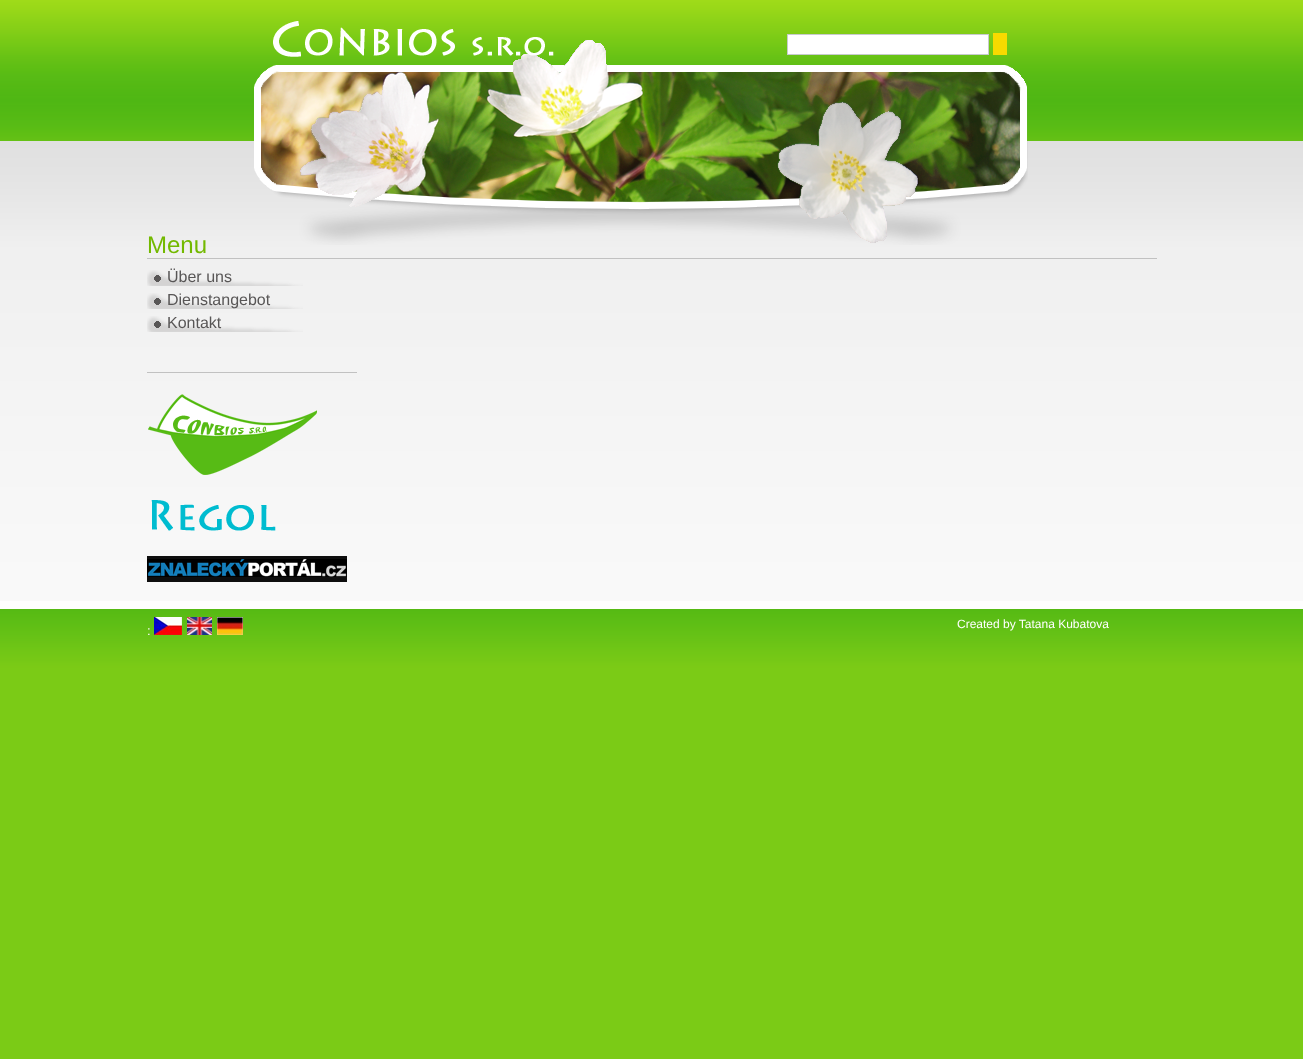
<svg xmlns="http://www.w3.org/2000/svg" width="1303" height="1059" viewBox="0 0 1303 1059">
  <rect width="100%" height="100%" fill="rgb(123,203,22)"/>
  <rect x="0" y="601" width="1303" height="8" fill="rgb(254,254,254)"/>
  <image x="0" y="0" width="1303" height="601" href="pic1.png"/>
  <image x="254" y="21" width="774" height="224" href="pic2.png"/>
  <rect x="787.5" y="34.5" width="201" height="20" fill="rgb(255,255,255)" stroke="rgb(199,203,205)"/>
  <rect x="993" y="33" width="14" height="22" fill="rgb(247,218,0)"/>
  <rect x="147" y="258" width="1010" height="1" fill="rgb(193,193,193)"/>
  <text x="147" y="253" font-family="Liberation Sans" font-size="24" fill="rgb(115,185,0)">Menu</text>
  <image x="147" y="270" width="156" height="16" href="pic3.png"/>
  <text x="167" y="282" font-family="Liberation Sans" font-size="16" fill="rgb(88,86,86)">Über uns</text>
  <image x="147" y="293" width="156" height="16" href="pic4.png"/>
  <text x="167" y="305" font-family="Liberation Sans" font-size="16" fill="rgb(88,86,86)">Dienstangebot</text>
  <image x="147" y="316" width="156" height="16" href="pic5.png"/>
  <text x="167" y="328" font-family="Liberation Sans" font-size="16" fill="rgb(88,86,86)">Kontakt</text>
  <rect x="147" y="372" width="210" height="1" fill="rgb(193,193,193)"/>
  <image x="148" y="394" width="169" height="81" href="pic6.png"/>
  <image x="151" y="500" width="125" height="31" href="pic7.png"/>
  <image x="147" y="556" width="200" height="26" href="pic8.png"/>
  <image x="0" y="609" width="1303" height="60" href="pic12.png"/>
  <text x="147" y="635" font-family="Liberation Sans" font-size="13" fill="rgb(255,255,255)">:</text>
  <image x="154" y="617" width="28" height="18" href="pic9.png"/>
  <image x="187" y="617" width="25" height="18" href="pic10.png"/>
  <image x="217" y="617" width="26" height="18" href="pic11.png"/>
  <text x="957" y="628" font-family="Liberation Sans" font-size="12" fill="rgb(255,255,255)">Created by Tatana Kubatova</text>
</svg>
